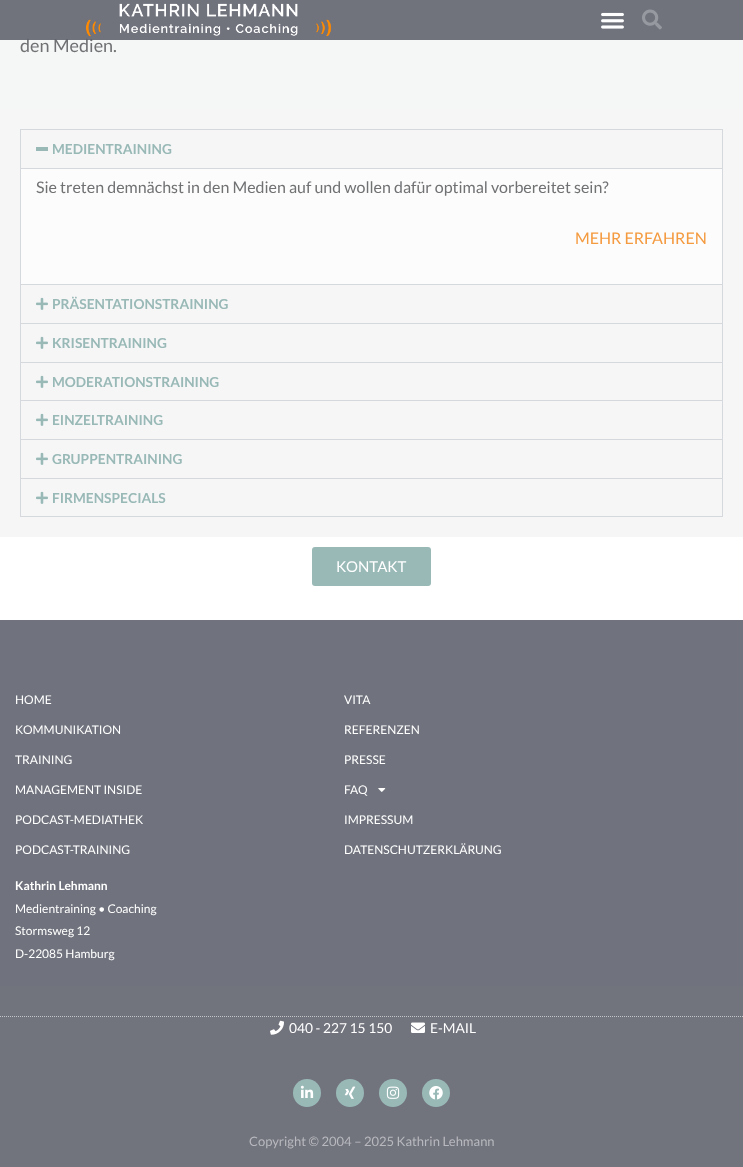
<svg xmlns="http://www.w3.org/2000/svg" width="743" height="1167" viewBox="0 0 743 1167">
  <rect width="100%" height="100%" fill="rgb(255,255,255)"/>
  <rect x="0" y="0" width="743" height="109" fill="rgb(245,246,246)"/>
  <text x="20" y="52" font-family="Lato" font-size="18" fill="rgb(112,113,115)">den Medien.</text>
  <rect x="0" y="0" width="409" height="40" fill="rgba(93,96,107,0.88)"/>
  <image x="86" y="3" width="246" height="34" href="pic1.png"/>
  <rect x="409" y="0" width="223" height="40" fill="rgba(93,96,107,0.88)"/>
  <image x="601" y="12" width="23" height="17" href="pic2.png"/>
  <rect x="632" y="0" width="111" height="40" fill="rgba(93,96,107,0.88)"/>
  <image x="642" y="9" width="20" height="21" href="pic3.png"/>
  <rect x="0" y="109" width="743" height="428" fill="rgb(246,246,247)"/>
  <rect x="20.5" y="129.5" width="702" height="155" fill="none" stroke="rgb(213,216,220)"/>
  <rect x="36" y="147" width="12" height="4" fill="rgb(153,185,183)"/>
  <text x="52" y="154" font-family="Lato" font-size="13.75" font-weight="bold" fill="rgb(153,185,183)">MEDIENTRAINING</text>
  <rect x="21" y="169" width="701" height="115" fill="rgb(252,252,252)"/>
  <rect x="21" y="168" width="701" height="1" fill="rgb(213,216,220)"/>
  <text x="36" y="193" font-family="Lato" font-size="16" fill="rgb(112,113,115)">Sie treten demnächst in den Medien auf und wollen dafür optimal vorbereitet sein?</text>
  <text x="575" y="244" font-family="Lato" font-size="16" fill="rgb(244,154,63)">MEHR ERFAHREN</text>
  <rect x="722" y="285" width="1" height="232" fill="rgb(213,216,220)"/>
  <rect x="20" y="323" width="703" height="1" fill="rgb(213,216,220)"/>
  <rect x="20" y="285" width="1" height="39" fill="rgb(213,216,220)"/>
  <image x="36" y="297" width="12" height="13" href="pic4.png"/>
  <text x="52" y="309" font-family="Lato" font-size="13.75" font-weight="bold" fill="rgb(153,185,183)">PRÄSENTATIONSTRAINING</text>
  <rect x="20" y="362" width="703" height="1" fill="rgb(213,216,220)"/>
  <rect x="20" y="324" width="1" height="39" fill="rgb(213,216,220)"/>
  <image x="36" y="336" width="12" height="13" href="pic4.png"/>
  <text x="52" y="348" font-family="Lato" font-size="13.75" font-weight="bold" fill="rgb(153,185,183)">KRISENTRAINING</text>
  <rect x="20" y="400" width="703" height="1" fill="rgb(213,216,220)"/>
  <rect x="20" y="363" width="1" height="38" fill="rgb(213,216,220)"/>
  <image x="36" y="375" width="12" height="13" href="pic4.png"/>
  <text x="52" y="387" font-family="Lato" font-size="13.75" font-weight="bold" fill="rgb(153,185,183)">MODERATIONSTRAINING</text>
  <rect x="20" y="439" width="703" height="1" fill="rgb(213,216,220)"/>
  <rect x="20" y="401" width="1" height="39" fill="rgb(213,216,220)"/>
  <image x="36" y="413" width="12" height="13" href="pic4.png"/>
  <text x="52" y="425" font-family="Lato" font-size="13.75" font-weight="bold" fill="rgb(153,185,183)">EINZELTRAINING</text>
  <rect x="20" y="478" width="703" height="1" fill="rgb(213,216,220)"/>
  <rect x="20" y="440" width="1" height="39" fill="rgb(213,216,220)"/>
  <image x="36" y="452" width="12" height="13" href="pic4.png"/>
  <text x="52" y="464" font-family="Lato" font-size="13.75" font-weight="bold" fill="rgb(153,185,183)">GRUPPENTRAINING</text>
  <rect x="20" y="516" width="703" height="1" fill="rgb(213,216,220)"/>
  <rect x="20" y="479" width="1" height="38" fill="rgb(213,216,220)"/>
  <image x="36" y="491" width="12" height="13" href="pic4.png"/>
  <text x="52" y="503" font-family="Lato" font-size="13.75" font-weight="bold" fill="rgb(153,185,183)">FIRMENSPECIALS</text>
  <rect x="312" y="547" width="119" height="39" rx="3" fill="rgb(153,185,183)"/>
  <text x="336" y="572" font-family="Lato" font-size="15" fill="rgb(255,255,255)">KONTAKT</text>
  <rect x="0" y="620" width="743" height="366" fill="rgb(112,115,125)"/>
  <g font-family="Lato" font-size="12" fill="rgb(255,255,255)">
    <text x="15" y="704">HOME</text>
    <text x="15" y="734">KOMMUNIKATION</text>
    <text x="15" y="764">TRAINING</text>
    <text x="15" y="794">MANAGEMENT INSIDE</text>
    <text x="15" y="824">PODCAST-MEDIATHEK</text>
    <text x="15" y="854">PODCAST-TRAINING</text>
    <text x="344" y="704">VITA</text>
    <text x="344" y="734">REFERENZEN</text>
    <text x="344" y="764">PRESSE</text>
    <text x="344" y="794">FAQ</text>
  </g>
  <image x="378" y="788" width="8" height="4" href="pic5.png"/>
  <g font-family="Lato" font-size="12" fill="rgb(255,255,255)">
    <text x="344" y="824">IMPRESSUM</text>
    <text x="344" y="854">DATENSCHUTZERKLÄRUNG</text>
  </g>
  <text x="15" y="890" font-family="Lato" font-size="12" font-weight="bold" fill="rgb(255,255,255)">Kathrin Lehmann</text>
  <g font-family="Lato" font-size="12" fill="rgb(255,255,255)">
    <text>
      <tspan x="15" y="913">Medientraining • Coaching</tspan>
      <tspan x="15" y="935">Stormsweg 12</tspan>
      <tspan x="15" y="958">D-22085 Hamburg</tspan>
    </text>
  </g>
  <rect x="0" y="986" width="743" height="181" fill="rgb(113,115,125)"/>
  <path d="M0 1016.5H743" fill="none" stroke="rgb(197,198,202)" stroke-dasharray="1 1"/>
  <image x="270" y="1020" width="14" height="15" href="pic6.png"/>
  <text x="289" y="1033" font-family="Lato" font-size="13.75" fill="rgb(255,255,255)">040 - 227 15 150</text>
  <image x="411" y="1022" width="14" height="11" href="pic7.png"/>
  <text x="430" y="1033" font-family="Lato" font-size="13.75" fill="rgb(255,255,255)">E-MAIL</text>
  <circle cx="307" cy="1093" r="14" fill="rgb(153,185,183)"/>
  <image x="300" y="1085" width="14" height="13" href="pic8.png"/>
  <circle cx="350" cy="1093" r="14" fill="rgb(153,185,183)"/>
  <image x="344" y="1086" width="12" height="13" href="pic9.png"/>
  <circle cx="393" cy="1093" r="14" fill="rgb(153,185,183)"/>
  <image x="386" y="1086" width="14" height="13" href="pic10.png"/>
  <circle cx="436" cy="1093" r="14" fill="rgb(153,185,183)"/>
  <image x="429" y="1086" width="14" height="14" href="pic11.png"/>
  <text x="249" y="1146" font-family="Lato" font-size="13" fill="rgb(184,185,190)">Copyright © 2004 – 2025 Kathrin Lehmann</text>
</svg>
